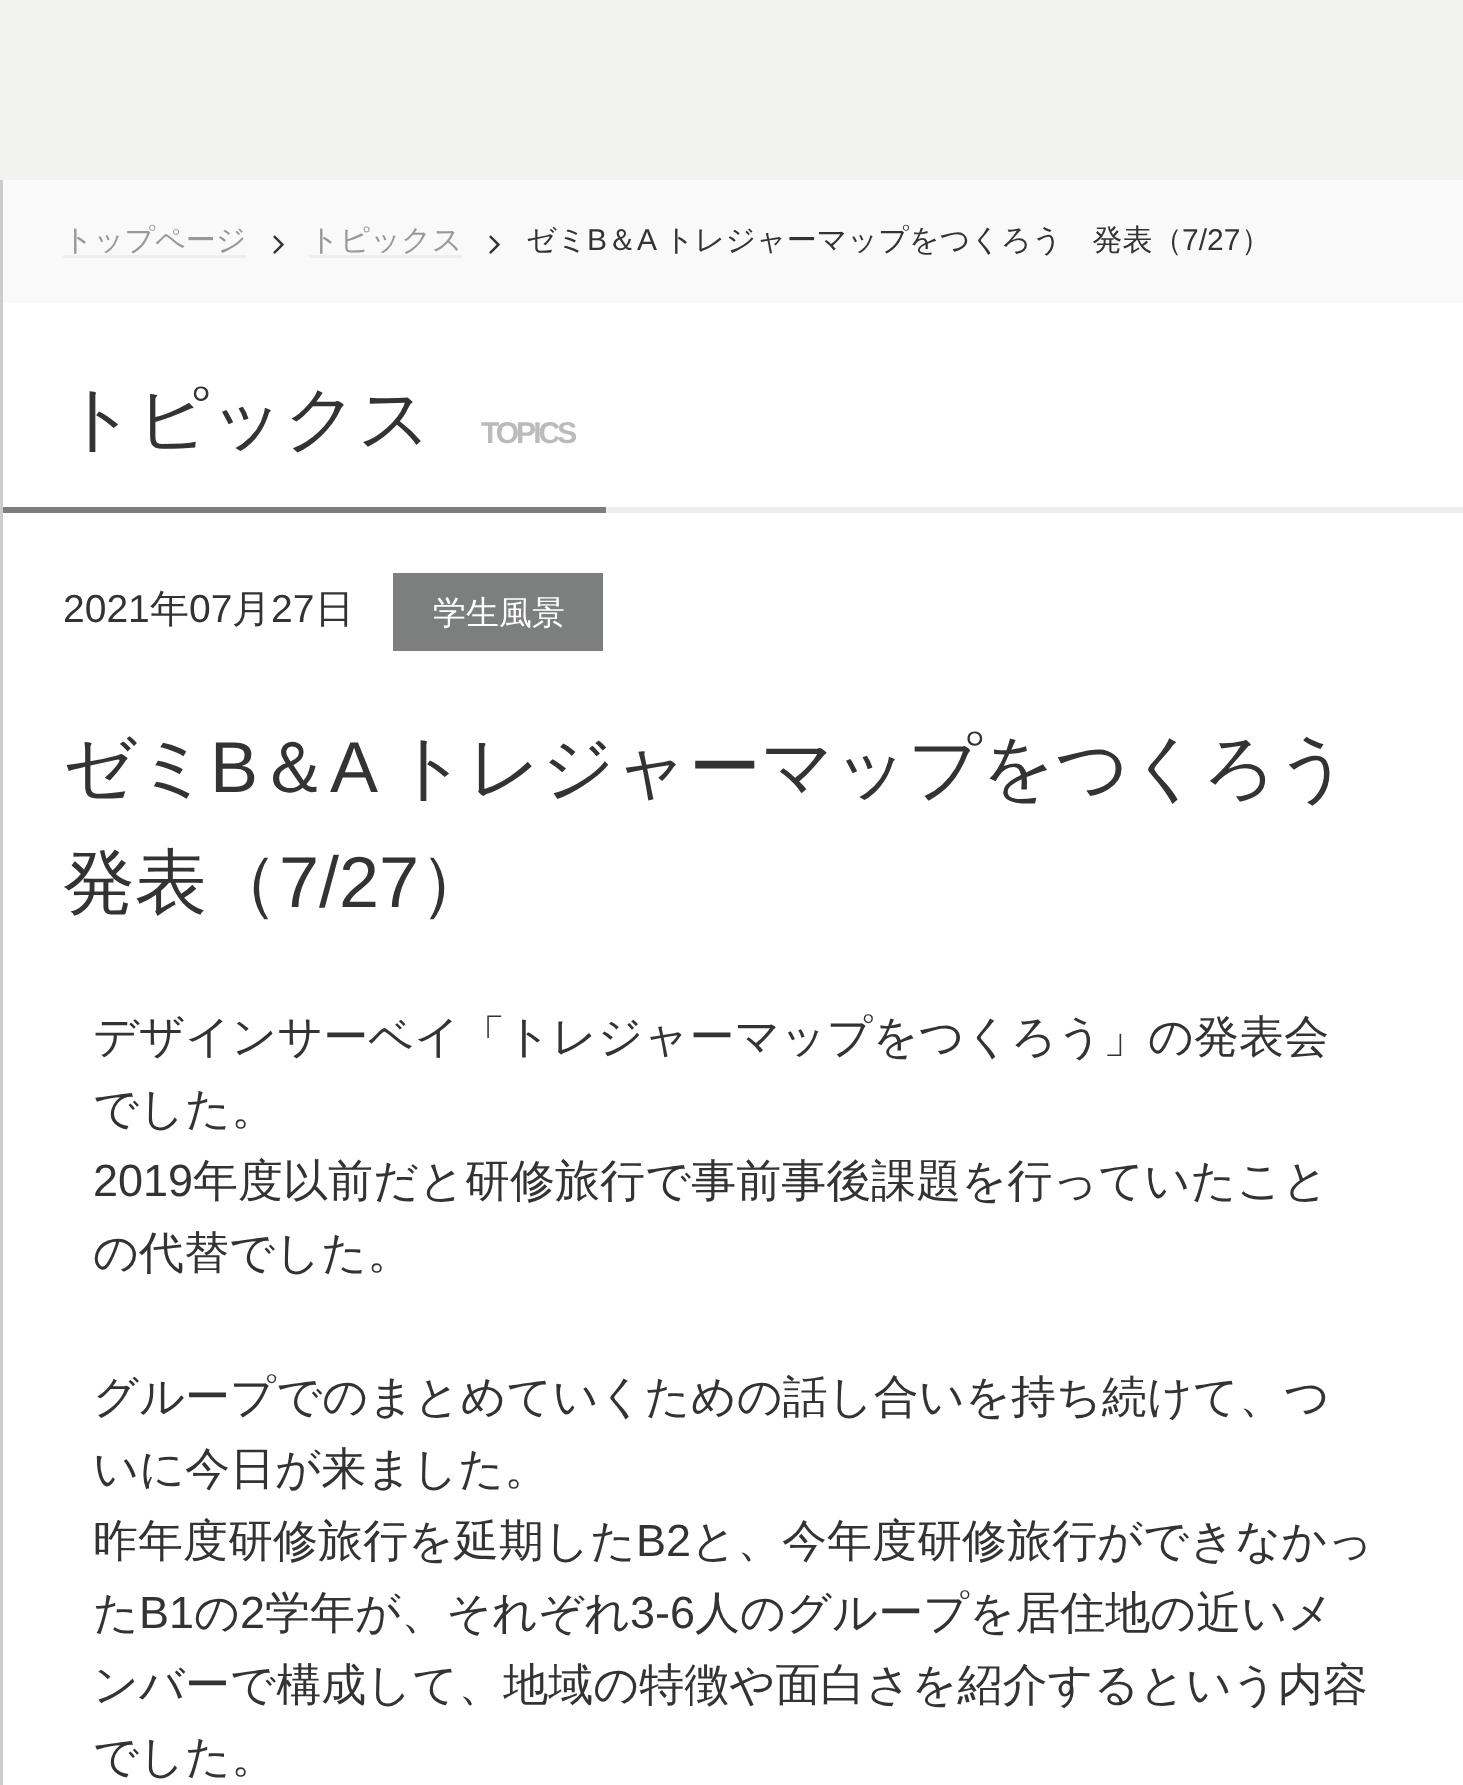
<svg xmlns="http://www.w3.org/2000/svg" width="1463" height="1785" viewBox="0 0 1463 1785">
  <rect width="100%" height="100%" fill="rgb(255,255,255)"/>
  <rect x="0" y="0" width="1463" height="180" fill="rgb(242,242,241)"/>
  <rect x="0" y="180" width="3" height="1605" fill="rgb(204,204,204)"/>
  <rect x="3" y="180" width="1460" height="123" fill="rgb(249,249,249)"/>
  <text x="63" y="250" font-family="WenQuanYi Zen Hei" font-size="30" font-weight="500" fill="rgb(153,153,153)">トップページ</text>
  <rect x="63" y="255" width="183" height="3" fill="rgb(238,238,238)"/>
  <image x="273" y="235" width="11" height="19" href="pic1.png"/>
  <text x="309" y="250" font-family="WenQuanYi Zen Hei" font-size="30" font-weight="500" fill="rgb(153,153,153)">トピックス</text>
  <rect x="309" y="255" width="153" height="3" fill="rgb(238,238,238)"/>
  <image x="489" y="235" width="11" height="19" href="pic1.png"/>
  <text x="526" y="250" font-family="WenQuanYi Zen Hei" font-size="30" font-weight="500" fill="rgb(51,51,51)">ゼミ</text>
  <text x="587" y="250" font-family="Liberation Sans" font-size="30" fill="rgb(51,51,51)">B</text>
  <text x="607" y="250" font-family="WenQuanYi Zen Hei" font-size="30" font-weight="500" fill="rgb(51,51,51)">＆</text>
  <text x="637" y="250" font-family="Liberation Sans" font-size="30" fill="rgb(51,51,51)">A</text>
  <text x="664" y="250" font-family="WenQuanYi Zen Hei" font-size="30" font-weight="500" fill="rgb(51,51,51)">トレジャーマップをつくろう　発表（</text>
  <text x="1182" y="250" font-family="Liberation Sans" font-size="30" fill="rgb(51,51,51)">7/27</text>
  <text x="1241" y="250" font-family="WenQuanYi Zen Hei" font-size="30" font-weight="500" fill="rgb(51,51,51)">）</text>
  <rect x="606" y="507" width="857" height="6" fill="rgb(238,238,238)"/>
  <rect x="3" y="507" width="603" height="6" fill="rgb(125,126,126)"/>
  <text x="63" y="443" font-family="WenQuanYi Zen Hei" font-size="72" font-weight="500" fill="rgb(51,51,51)">トピックス</text>
  <text x="481" y="443" font-family="Liberation Sans" font-size="30" font-weight="bold" letter-spacing="-3" fill="rgb(187,187,187)">TOPICS</text>
  <text x="63" y="622" font-family="Liberation Sans" font-size="39" fill="rgb(51,51,51)">2021</text>
  <text x="150" y="622" font-family="WenQuanYi Zen Hei" font-size="39" font-weight="500" fill="rgb(51,51,51)">年</text>
  <text x="189" y="622" font-family="Liberation Sans" font-size="39" fill="rgb(51,51,51)">07</text>
  <text x="232" y="622" font-family="WenQuanYi Zen Hei" font-size="39" font-weight="500" fill="rgb(51,51,51)">月</text>
  <text x="271" y="622" font-family="Liberation Sans" font-size="39" fill="rgb(51,51,51)">27</text>
  <text x="315" y="622" font-family="WenQuanYi Zen Hei" font-size="39" font-weight="500" fill="rgb(51,51,51)">日</text>
  <rect x="393" y="573" width="210" height="78" fill="rgb(125,126,126)"/>
  <text x="433" y="624" font-family="WenQuanYi Zen Hei" font-size="33" font-weight="500" fill="rgb(255,255,255)">学生風景</text>
  <text x="63" y="792" font-family="WenQuanYi Zen Hei" font-size="72" font-weight="500" fill="rgb(51,51,51)">ゼミ</text>
  <text x="210" y="792" font-family="Liberation Sans" font-size="72" fill="rgb(51,51,51)">B</text>
  <text x="258" y="792" font-family="WenQuanYi Zen Hei" font-size="72" font-weight="500" fill="rgb(51,51,51)">＆</text>
  <text x="330" y="792" font-family="Liberation Sans" font-size="72" fill="rgb(51,51,51)">A</text>
  <g font-family="WenQuanYi Zen Hei" font-size="72" font-weight="500" fill="rgb(51,51,51)">
    <text x="394" y="792">トレジャーマップをつくろう</text>
    <text x="63" y="907">発表（</text>
  </g>
  <text x="279" y="907" font-family="Liberation Sans" font-size="72" fill="rgb(51,51,51)">7/27</text>
  <text x="419" y="907" font-family="WenQuanYi Zen Hei" font-size="72" font-weight="500" fill="rgb(51,51,51)">）</text>
  <g font-family="WenQuanYi Zen Hei" font-size="45" font-weight="500" fill="rgb(51,51,51)">
    <text>
      <tspan x="93" y="1052">デザインサーベイ「トレジャーマップをつくろう」の発表会</tspan>
      <tspan x="93" y="1124">でした。</tspan>
    </text>
  </g>
  <text x="93" y="1196" font-family="Liberation Sans" font-size="45" fill="rgb(51,51,51)">2019</text>
  <g font-family="WenQuanYi Zen Hei" font-size="45" font-weight="500" fill="rgb(51,51,51)">
    <text x="193" y="1196">年度以前だと研修旅行で事前事後課題を行っていたこと</text>
    <text x="93" y="1268">の代替でした。</text>
    <text>
      <tspan x="93" y="1412">グループでのまとめていくための話し合いを持ち続けて、つ</tspan>
      <tspan x="93" y="1484">いに今日が来ました。</tspan>
      <tspan x="93" y="1556">昨年度研修旅行を延期した</tspan>
    </text>
  </g>
  <text x="636" y="1556" font-family="Liberation Sans" font-size="45" fill="rgb(51,51,51)">B2</text>
  <g font-family="WenQuanYi Zen Hei" font-size="45" font-weight="500" fill="rgb(51,51,51)">
    <text x="691" y="1556">と、今年度研修旅行ができなかっ</text>
    <text x="93" y="1628">た</text>
  </g>
  <text x="139" y="1628" font-family="Liberation Sans" font-size="45" fill="rgb(51,51,51)">B1</text>
  <text x="194" y="1628" font-family="WenQuanYi Zen Hei" font-size="45" font-weight="500" fill="rgb(51,51,51)">の</text>
  <text x="240" y="1628" font-family="Liberation Sans" font-size="45" fill="rgb(51,51,51)">2</text>
  <text x="265" y="1628" font-family="WenQuanYi Zen Hei" font-size="45" font-weight="500" fill="rgb(51,51,51)">学年が、それぞれ</text>
  <text x="630" y="1628" font-family="Liberation Sans" font-size="45" fill="rgb(51,51,51)">3-6</text>
  <g font-family="WenQuanYi Zen Hei" font-size="45" font-weight="500" fill="rgb(51,51,51)">
    <text x="695" y="1628">人のグループを居住地の近いメ</text>
    <text>
      <tspan x="93" y="1700">ンバーで構成して、地域の特徴や面白さを紹介するという内容</tspan>
      <tspan x="93" y="1772">でした。</tspan>
    </text>
  </g>
</svg>
